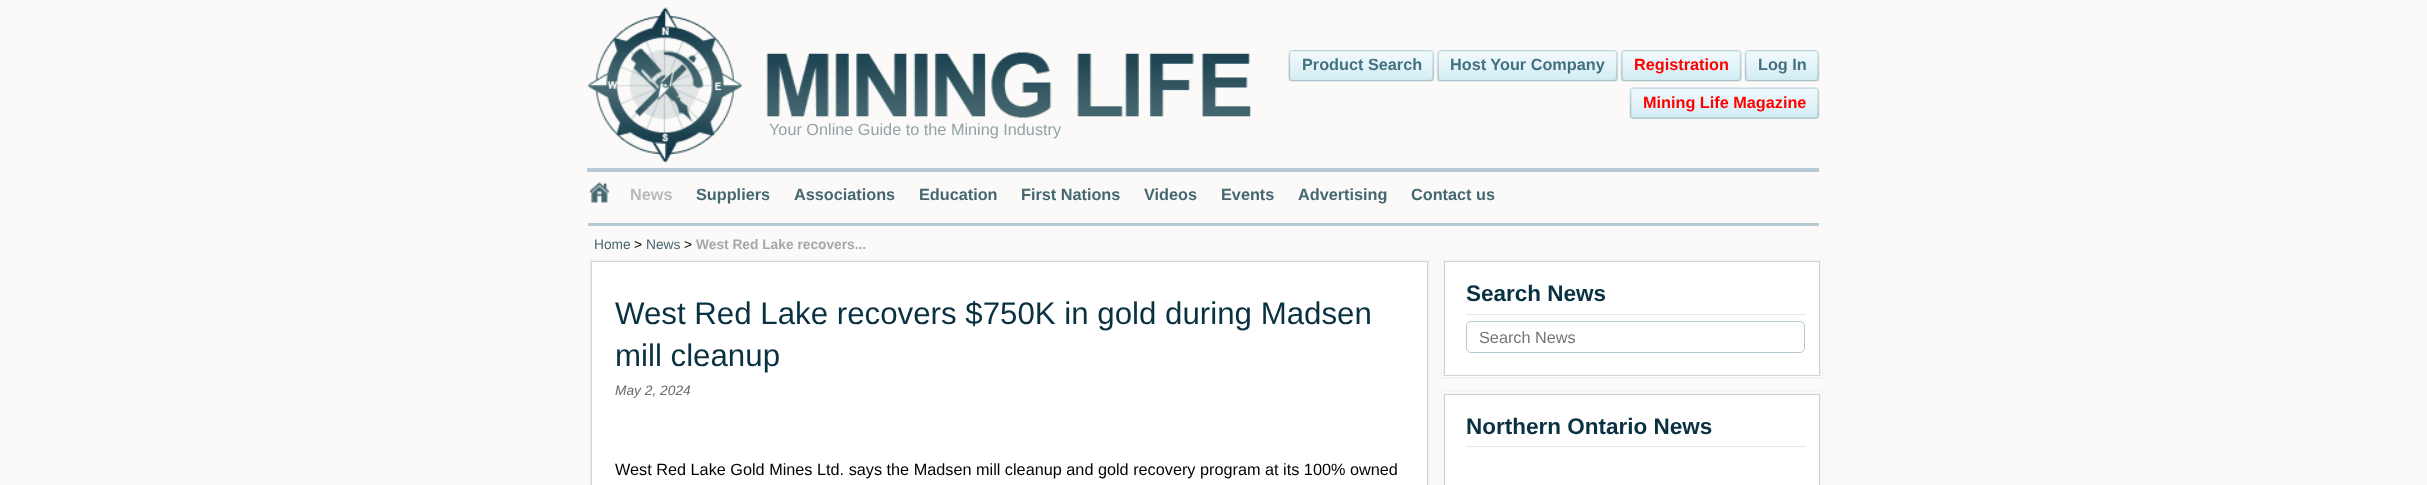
<svg xmlns="http://www.w3.org/2000/svg" width="2427" height="485" viewBox="0 0 2427 485">
  <rect width="100%" height="100%" fill="rgb(251,250,249)"/>
  <image x="1288" y="50" width="5" height="32" href="pic1.png"/>
  <image x="1292" y="50" width="143" height="32" href="pic2.png"/>
  <text x="1302" y="70" font-family="Liberation Sans" font-size="16.25" font-weight="bold" fill="rgb(67,113,130)">Product Search</text>
  <image x="1436" y="50" width="6" height="32" href="pic3.png"/>
  <image x="1441" y="50" width="178" height="32" href="pic4.png"/>
  <text x="1450" y="70" font-family="Liberation Sans" font-size="16.25" font-weight="bold" fill="rgb(67,113,130)">Host Your Company</text>
  <image x="1620" y="50" width="5" height="32" href="pic5.png"/>
  <image x="1625" y="50" width="117" height="32" href="pic6.png"/>
  <text x="1634" y="70" font-family="Liberation Sans" font-size="16.25" font-weight="bold" fill="rgb(255,0,0)">Registration</text>
  <image x="1744" y="50" width="5" height="32" href="pic7.png"/>
  <image x="1748" y="50" width="72" height="32" href="pic8.png"/>
  <text x="1758" y="70" font-family="Liberation Sans" font-size="16.25" font-weight="bold" fill="rgb(67,113,130)">Log In</text>
  <image x="1629" y="87" width="5" height="32" href="pic9.png"/>
  <image x="1633" y="87" width="187" height="32" href="pic10.png"/>
  <text x="1643" y="108" font-family="Liberation Sans" font-size="16.25" font-weight="bold" fill="rgb(255,0,0)">Mining Life Magazine</text>
  <image x="587" y="7" width="665" height="156" href="pic11.png"/>
  <text x="769" y="135" font-family="Liberation Sans" font-size="16.25" fill="rgb(144,164,168)">Your Online Guide to the Mining Industry</text>
  <rect x="587" y="168" width="1232" height="4" fill="rgb(182,202,212)"/>
  <rect x="588" y="223" width="1231" height="3" fill="rgb(182,202,212)"/>
  <image x="590" y="182" width="19" height="21" href="pic12.png"/>
  <text x="630" y="200" font-family="Liberation Sans" font-size="16.25" font-weight="bold" fill="rgb(185,185,185)">News</text>
  <g font-family="Liberation Sans" font-size="16.25" font-weight="bold" fill="rgb(69,103,112)">
    <text x="696" y="200">Suppliers</text>
    <text x="794" y="200">Associations</text>
    <text x="919" y="200">Education</text>
    <text x="1021" y="200">First Nations</text>
    <text x="1144" y="200">Videos</text>
    <text x="1221" y="200">Events</text>
    <text x="1298" y="200">Advertising</text>
    <text x="1411" y="200">Contact us</text>
  </g>
  <text x="594" y="249" font-family="Liberation Sans" font-size="13.75" fill="rgb(69,103,112)">Home</text>
  <text x="634" y="249" font-family="Liberation Sans" font-size="13.75" fill="rgb(0,0,0)">&gt;</text>
  <text x="646" y="249" font-family="Liberation Sans" font-size="13.75" fill="rgb(69,103,112)">News</text>
  <text x="684" y="249" font-family="Liberation Sans" font-size="13.75" fill="rgb(0,0,0)">&gt;</text>
  <text x="696" y="249" font-family="Liberation Sans" font-size="13.75" font-weight="bold" fill="rgb(167,167,167)">West Red Lake recovers...</text>
  <rect x="592" y="262" width="835" height="223" fill="rgb(255,255,255)"/>
  <rect x="588.5" y="258.5" width="842" height="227" fill="none" stroke="rgb(248,248,248)"/>
  <rect x="589.5" y="259.5" width="840" height="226" fill="none" stroke="rgb(245,245,245)"/>
  <rect x="590.5" y="260.5" width="838" height="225" fill="none" stroke="rgb(240,240,240)"/>
  <rect x="591.5" y="261.5" width="836" height="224" fill="none" stroke="rgb(211,211,211)"/>
  <g font-family="Liberation Sans" font-size="31.25" fill="rgb(10,49,66)">
    <text>
      <tspan x="615" y="324">West Red Lake recovers $750K in gold during Madsen</tspan>
      <tspan x="615" y="366">mill cleanup</tspan>
    </text>
  </g>
  <text x="615" y="395" font-family="Liberation Sans" font-size="13.75" font-style="italic" fill="rgb(105,105,105)">May 2, 2024</text>
  <text x="615" y="475" font-family="Liberation Sans" font-size="16.25" fill="rgb(0,0,0)">West Red Lake Gold Mines Ltd. says the Madsen mill cleanup and gold recovery program at its 100% owned</text>
  <rect x="1442" y="260" width="380" height="118" fill="rgb(255,255,255)"/>
  <rect x="1440.5" y="258.5" width="383" height="121" fill="none" stroke="rgb(248,248,248)"/>
  <rect x="1441.5" y="259.5" width="381" height="119" fill="none" stroke="rgb(245,245,245)"/>
  <rect x="1443.5" y="260.5" width="377" height="117" fill="none" stroke="rgb(240,240,240)"/>
  <rect x="1444.5" y="261.5" width="375" height="114" fill="none" stroke="rgb(211,211,211)"/>
  <rect x="1466" y="314" width="340" height="1" fill="rgb(231,231,231)"/>
  <text x="1466" y="301" font-family="Liberation Sans" font-size="22.5" font-weight="bold" fill="rgb(10,49,66)">Search News</text>
  <rect x="1466.5" y="321.5" width="338" height="31" rx="4.5" fill="none" stroke="rgb(182,202,212)"/>
  <text x="1479" y="343" font-family="Liberation Sans" font-size="16.25" fill="rgb(117,117,117)">Search News</text>
  <rect x="1442" y="392" width="380" height="93" fill="rgb(255,255,255)"/>
  <rect x="1440.5" y="390.5" width="383" height="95" fill="none" stroke="rgb(248,248,248)"/>
  <rect x="1441.5" y="391.5" width="381" height="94" fill="none" stroke="rgb(245,245,245)"/>
  <rect x="1443.5" y="393.5" width="377" height="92" fill="none" stroke="rgb(240,240,240)"/>
  <rect x="1444.5" y="394.5" width="375" height="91" fill="none" stroke="rgb(211,211,211)"/>
  <rect x="1466" y="446" width="340" height="1" fill="rgb(231,231,231)"/>
  <text x="1466" y="434" font-family="Liberation Sans" font-size="22.5" font-weight="bold" fill="rgb(10,49,66)">Northern Ontario News</text>
</svg>
